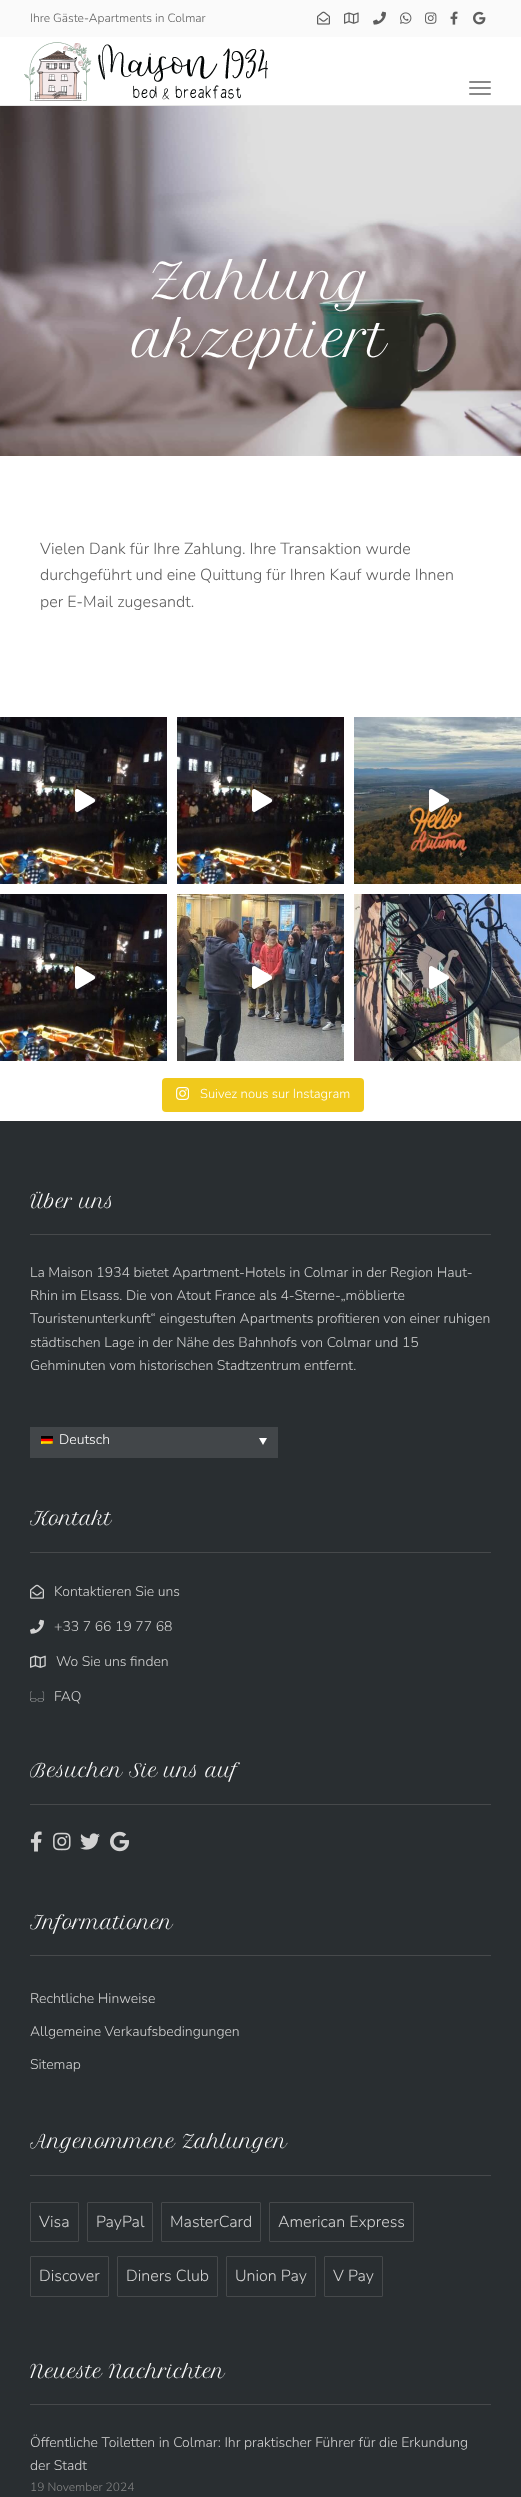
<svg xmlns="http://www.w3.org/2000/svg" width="521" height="2497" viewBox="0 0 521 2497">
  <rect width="100%" height="100%" fill="rgb(255,255,255)"/>
  <rect x="0" y="105" width="521" height="1" fill="rgb(231,231,231)"/>
  <rect x="0" y="0" width="521" height="37" fill="rgb(250,250,250)"/>
  <text x="30" y="22" font-family="Nunito" font-size="12" font-weight="300" fill="rgb(92,92,92)">Ihre Gäste-Apartments in Colmar</text>
  <image x="317" y="11" width="13" height="14" href="pic1.png"/>
  <image x="344" y="12" width="15" height="12" href="pic2.png"/>
  <image x="373" y="11" width="13" height="14" href="pic3.png"/>
  <image x="400" y="12" width="12" height="12" href="pic4.png"/>
  <image x="425" y="12" width="12" height="12" href="pic5.png"/>
  <image x="450" y="11" width="8" height="14" href="pic6.png"/>
  <image x="473" y="11" width="13" height="14" href="pic7.png"/>
  <image x="24" y="42" width="244" height="59" href="pic8.png"/>
  <rect x="469" y="81" width="22" height="2" rx="1" fill="rgb(136,136,136)"/>
  <rect x="469" y="87" width="22" height="2" rx="1" fill="rgb(136,136,136)"/>
  <rect x="469" y="93" width="22" height="2" rx="1" fill="rgb(136,136,136)"/>
  <image x="0" y="106" width="521" height="350" href="pic9.png"/>
  <g font-family="Petit Formal Script" font-size="48" fill="rgb(255,255,255)">
    <text x="149" y="299">Zahlung</text>
    <text x="133" y="357">akzeptiert</text>
  </g>
  <g font-family="Nunito" font-size="16" font-weight="300" fill="rgb(92,92,92)">
    <text>
      <tspan x="40" y="554">Vielen Dank für Ihre Zahlung. Ihre Transaktion wurde</tspan>
      <tspan x="40" y="580">durchgeführt und eine Quittung für Ihren Kauf wurde Ihnen</tspan>
      <tspan x="40" y="607">per E-Mail zugesandt.</tspan>
    </text>
  </g>
  <image x="0" y="717" width="167" height="167" href="pic10.png"/>
  <image x="75" y="789" width="20" height="23" href="pic11.png"/>
  <image x="177" y="717" width="167" height="167" href="pic10.png"/>
  <image x="252" y="789" width="20" height="23" href="pic11.png"/>
  <image x="354" y="717" width="167" height="167" href="pic12.png"/>
  <image x="429" y="789" width="20" height="23" href="pic13.png"/>
  <image x="0" y="894" width="167" height="167" href="pic10.png"/>
  <image x="75" y="966" width="20" height="23" href="pic11.png"/>
  <image x="177" y="894" width="167" height="167" href="pic14.png"/>
  <image x="252" y="966" width="20" height="23" href="pic15.png"/>
  <image x="354" y="894" width="167" height="167" href="pic16.png"/>
  <image x="429" y="966" width="20" height="23" href="pic17.png"/>
  <rect x="162" y="1078" width="202" height="34" rx="4" fill="rgb(240,201,28)"/>
  <image x="176" y="1087" width="13" height="13" href="pic18.png"/>
  <text x="200" y="1098" font-family="Nunito" font-size="13" font-weight="300" fill="rgb(255,255,255)">Suivez nous sur Instagram</text>
  <rect x="0" y="1121" width="521" height="1376" fill="rgb(41,46,49)"/>
  <rect x="30" y="1234" width="461" height="1" fill="rgb(70,73,75)"/>
  <text x="30" y="1208" font-family="Petit Formal Script" font-size="18" fill="rgb(255,255,255)">Über uns</text>
  <g font-family="Nunito" font-size="14" font-weight="300" fill="rgb(210,210,210)">
    <text>
      <tspan x="30" y="1277">La Maison 1934 bietet Apartment-Hotels in Colmar in der Region Haut-</tspan>
      <tspan x="30" y="1300">Rhin im Elsass. Die von Atout France als 4-Sterne-„möblierte</tspan>
      <tspan x="30" y="1323">Touristenunterkunft“ eingestuften Apartments profitieren von einer ruhigen</tspan>
      <tspan x="30" y="1347">städtischen Lage in der Nähe des Bahnhofs von Colmar und 15</tspan>
      <tspan x="30" y="1370">Gehminuten vom historischen Stadtzentrum entfernt.</tspan>
    </text>
  </g>
  <rect x="30" y="1427" width="248" height="31" fill="rgb(66,70,73)"/>
  <image x="41" y="1436" width="12" height="8" href="pic19.png"/>
  <text x="59" y="1444" font-family="Nunito" font-size="14" font-weight="300" fill="rgb(255,255,255)">Deutsch</text>
  <path d="M259 1438H267L263 1445Z" fill="rgb(255,255,255)"/>
  <rect x="30" y="1552" width="461" height="1" fill="rgb(70,73,75)"/>
  <text x="30" y="1525" font-family="Petit Formal Script" font-size="18" fill="rgb(255,255,255)">Kontakt</text>
  <image x="30" y="1584" width="14" height="15" href="pic20.png"/>
  <text x="54" y="1596" font-family="Nunito" font-size="14" font-weight="300" fill="rgb(210,210,210)">Kontaktieren Sie uns</text>
  <image x="30" y="1619" width="14" height="15" href="pic21.png"/>
  <text x="54" y="1631" font-family="Nunito" font-size="14" font-weight="300" fill="rgb(210,210,210)">+33 7 66 19 77 68</text>
  <image x="30" y="1655" width="16" height="13" href="pic22.png"/>
  <text x="56" y="1666" font-family="Nunito" font-size="14" font-weight="300" fill="rgb(210,210,210)">Wo Sie uns finden</text>
  <image x="30" y="1691" width="15" height="11" href="pic23.png"/>
  <text x="54" y="1701" font-family="Nunito" font-size="14" font-weight="300" fill="rgb(210,210,210)">FAQ</text>
  <rect x="30" y="1804" width="461" height="1" fill="rgb(70,73,75)"/>
  <text x="30" y="1777" font-family="Petit Formal Script" font-size="18" fill="rgb(255,255,255)">Besuchen Sie uns auf</text>
  <image x="30" y="1831" width="12" height="21" href="pic24.png"/>
  <image x="53" y="1832" width="18" height="19" href="pic25.png"/>
  <image x="80" y="1833" width="20" height="17" href="pic26.png"/>
  <image x="110" y="1831" width="20" height="21" href="pic27.png"/>
  <rect x="30" y="1955" width="461" height="1" fill="rgb(70,73,75)"/>
  <text x="30" y="1929" font-family="Petit Formal Script" font-size="18" fill="rgb(255,255,255)">Informationen</text>
  <g font-family="Nunito" font-size="14" font-weight="300" fill="rgb(210,210,210)">
    <text x="30" y="2003">Rechtliche Hinweise</text>
    <text x="30" y="2036">Allgemeine Verkaufsbedingungen</text>
    <text x="30" y="2069">Sitemap</text>
  </g>
  <rect x="30" y="2175" width="461" height="1" fill="rgb(70,73,75)"/>
  <text x="30" y="2148" font-family="Petit Formal Script" font-size="18" fill="rgb(255,255,255)">Angenommene Zahlungen</text>
  <rect x="30.5" y="2202.5" width="48" height="39" rx="0.5" fill="none" stroke="rgb(70,73,75)"/>
  <text x="39" y="2227" font-family="Nunito" font-size="16" font-weight="300" fill="rgb(210,210,210)">Visa</text>
  <rect x="87.5" y="2202.5" width="65" height="39" rx="0.5" fill="none" stroke="rgb(70,73,75)"/>
  <text x="96" y="2227" font-family="Nunito" font-size="16" font-weight="300" fill="rgb(210,210,210)">PayPal</text>
  <rect x="161.5" y="2202.5" width="99" height="39" rx="0.5" fill="none" stroke="rgb(70,73,75)"/>
  <text x="170" y="2227" font-family="Nunito" font-size="16" font-weight="300" fill="rgb(210,210,210)">MasterCard</text>
  <rect x="269.5" y="2202.5" width="144" height="39" rx="0.5" fill="none" stroke="rgb(70,73,75)"/>
  <text x="278" y="2227" font-family="Nunito" font-size="16" font-weight="300" fill="rgb(210,210,210)">American Express</text>
  <rect x="30.5" y="2256.5" width="78" height="40" rx="0.5" fill="none" stroke="rgb(70,73,75)"/>
  <text x="39" y="2281" font-family="Nunito" font-size="16" font-weight="300" fill="rgb(210,210,210)">Discover</text>
  <rect x="117.5" y="2256.5" width="100" height="40" rx="0.5" fill="none" stroke="rgb(70,73,75)"/>
  <text x="126" y="2281" font-family="Nunito" font-size="16" font-weight="300" fill="rgb(210,210,210)">Diners Club</text>
  <rect x="226.5" y="2256.5" width="89" height="40" rx="0.5" fill="none" stroke="rgb(70,73,75)"/>
  <text x="235" y="2281" font-family="Nunito" font-size="16" font-weight="300" fill="rgb(210,210,210)">Union Pay</text>
  <rect x="324.5" y="2256.5" width="58" height="40" rx="0.5" fill="none" stroke="rgb(70,73,75)"/>
  <text x="333" y="2281" font-family="Nunito" font-size="16" font-weight="300" fill="rgb(210,210,210)">V Pay</text>
  <rect x="30" y="2404" width="461" height="1" fill="rgb(70,73,75)"/>
  <text x="30" y="2378" font-family="Petit Formal Script" font-size="18" fill="rgb(255,255,255)">Neueste Nachrichten</text>
  <g font-family="Nunito" font-size="14" font-weight="300" fill="rgb(210,210,210)">
    <text>
      <tspan x="30" y="2447">Öffentliche Toiletten in Colmar: Ihr praktischer Führer für die Erkundung</tspan>
      <tspan x="30" y="2470">der Stadt</tspan>
    </text>
  </g>
  <text x="30" y="2491" font-family="Nunito" font-size="12" font-weight="300" fill="rgb(132,132,132)">19 November 2024</text>
</svg>
